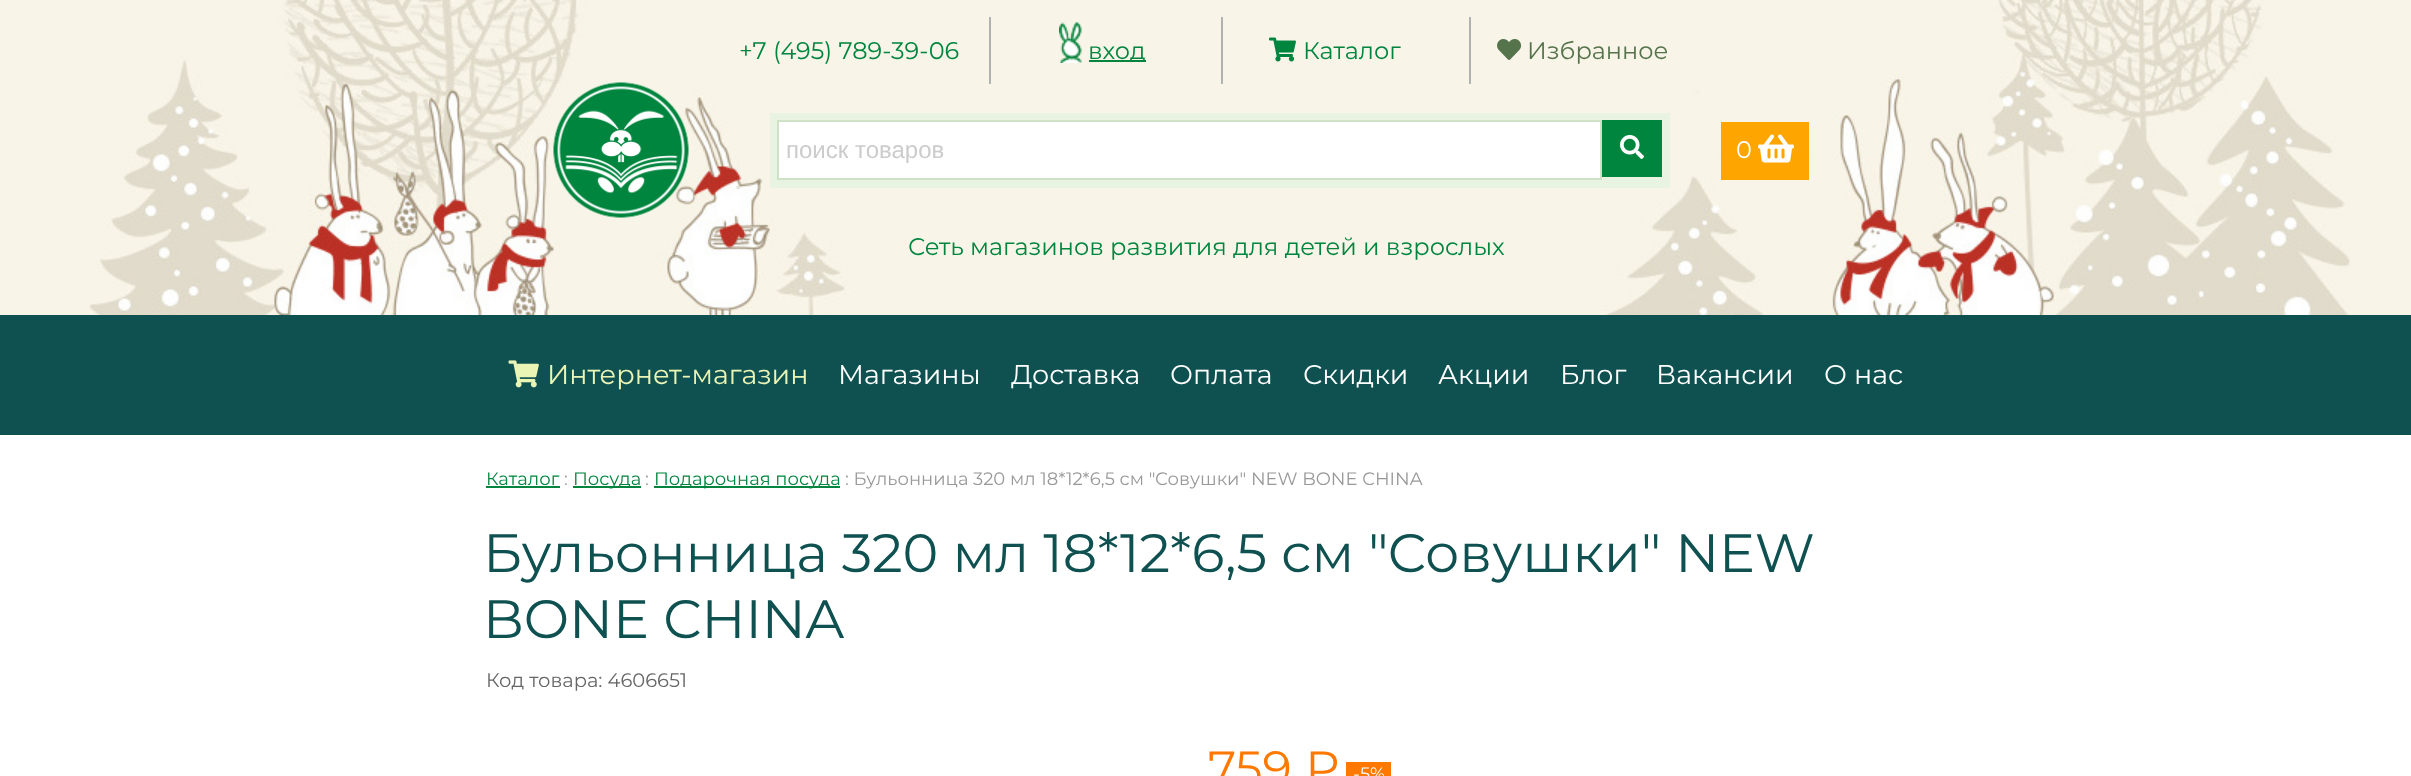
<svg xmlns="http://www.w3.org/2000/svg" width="2411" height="776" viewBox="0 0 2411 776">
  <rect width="100%" height="100%" fill="rgb(255,255,255)"/>
  <rect x="0" y="0" width="2411" height="315" fill="rgb(248,244,232)"/>
  <image x="89" y="0" width="2261" height="315" href="pic1.png"/>
  <text x="739" y="59" font-family="Montserrat" font-size="24" fill="rgb(0,133,62)">+7 (495) 789-39-06</text>
  <rect x="989" y="17" width="2" height="67" fill="rgb(176,177,177)"/>
  <image x="1059" y="22" width="23" height="41" href="pic2.png"/>
  <rect x="1089" y="60" width="57" height="2" fill="rgb(0,133,62)"/>
  <text x="1088" y="59" font-family="Montserrat" font-size="24" fill="rgb(0,133,62)">вход</text>
  <rect x="1221" y="17" width="2" height="67" fill="rgb(176,177,177)"/>
  <image x="1269" y="37" width="27" height="25" href="pic3.png"/>
  <text x="1303" y="59" font-family="Montserrat" font-size="24" fill="rgb(0,133,62)">Каталог</text>
  <rect x="1469" y="17" width="2" height="67" fill="rgb(176,177,177)"/>
  <image x="1497" y="39" width="25" height="21" href="pic4.png"/>
  <text x="1527" y="59" font-family="Montserrat" font-size="24" fill="rgb(86,116,76)">Избранное</text>
  <image x="553" y="82" width="136" height="136" href="pic5.png"/>
  <rect x="770" y="113" width="900" height="75" fill="rgb(232,243,226)"/>
  <rect x="778" y="121" width="823" height="58" fill="rgb(255,255,255)" stroke="rgb(207,226,198)" stroke-width="2"/>
  <text x="786" y="158" font-family="Liberation Sans" font-size="24" fill="rgb(204,204,204)">поиск товаров</text>
  <rect x="1602" y="120" width="60" height="57" fill="rgb(0,133,62)"/>
  <image x="1620" y="135" width="24" height="24" href="pic6.png"/>
  <rect x="1721" y="122" width="88" height="58" fill="rgb(255,165,0)"/>
  <text x="1736" y="158" font-family="Montserrat" font-size="24" fill="rgb(255,255,255)">0</text>
  <image x="1758" y="134" width="36" height="29" href="pic7.png"/>
  <text x="908" y="255" font-family="Montserrat" font-size="24" fill="rgb(0,133,62)">Сеть магазинов развития для детей и взрослых</text>
  <rect x="0" y="315" width="2411" height="120" fill="rgb(14,81,80)"/>
  <image x="508" y="360" width="31" height="28" href="pic8.png"/>
  <text x="547" y="384" font-family="Montserrat" font-size="27" fill="rgb(234,244,181)">Интернет-магазин</text>
  <g font-family="Montserrat" font-size="27" fill="rgb(255,255,255)">
    <text x="838" y="384">Магазины</text>
    <text x="1011" y="384">Доставка</text>
    <text x="1170" y="384">Оплата</text>
    <text x="1303" y="384">Скидки</text>
    <text x="1438" y="384">Акции</text>
    <text x="1560" y="384">Блог</text>
    <text x="1656" y="384">Вакансии</text>
    <text x="1824" y="384">О нас</text>
  </g>
  <text x="486" y="485" font-family="Montserrat" font-size="18" fill="rgb(0,133,62)">Каталог</text>
  <rect x="486" y="486" width="74" height="2" fill="rgb(0,133,62)"/>
  <text x="564" y="485" font-family="Montserrat" font-size="18" fill="rgb(153,153,153)">:</text>
  <rect x="573" y="486" width="68" height="2" fill="rgb(0,133,62)"/>
  <text x="573" y="485" font-family="Montserrat" font-size="18" fill="rgb(0,133,62)">Посуда</text>
  <text x="645" y="485" font-family="Montserrat" font-size="18" fill="rgb(153,153,153)">:</text>
  <rect x="654" y="486" width="186" height="2" fill="rgb(0,133,62)"/>
  <text x="654" y="485" font-family="Montserrat" font-size="18" fill="rgb(0,133,62)">Подарочная посуда</text>
  <text x="845" y="485" font-family="Montserrat" font-size="18" fill="rgb(153,153,153)">: Бульонница 320 мл 18*12*6,5 см "Совушки" NEW BONE CHINA</text>
  <g font-family="Montserrat" font-size="54" fill="rgb(14,81,80)">
    <text>
      <tspan x="483" y="572">Бульонница 320 мл 18*12*6,5 см "Совушки" NEW</tspan>
      <tspan x="483" y="638">BONE CHINA</tspan>
    </text>
  </g>
  <text x="486" y="687" font-family="Montserrat" font-size="19.5" fill="rgb(102,102,102)">Код товара: 4606651</text>
  <text x="1208" y="785" font-family="Montserrat" font-size="48" fill="rgb(255,120,0)">759 ₽</text>
  <rect x="1346" y="762" width="45" height="14" fill="rgb(255,120,0)"/>
  <text x="1353" y="780" font-family="Montserrat" font-size="18" fill="rgb(255,255,255)">-5%</text>
</svg>
